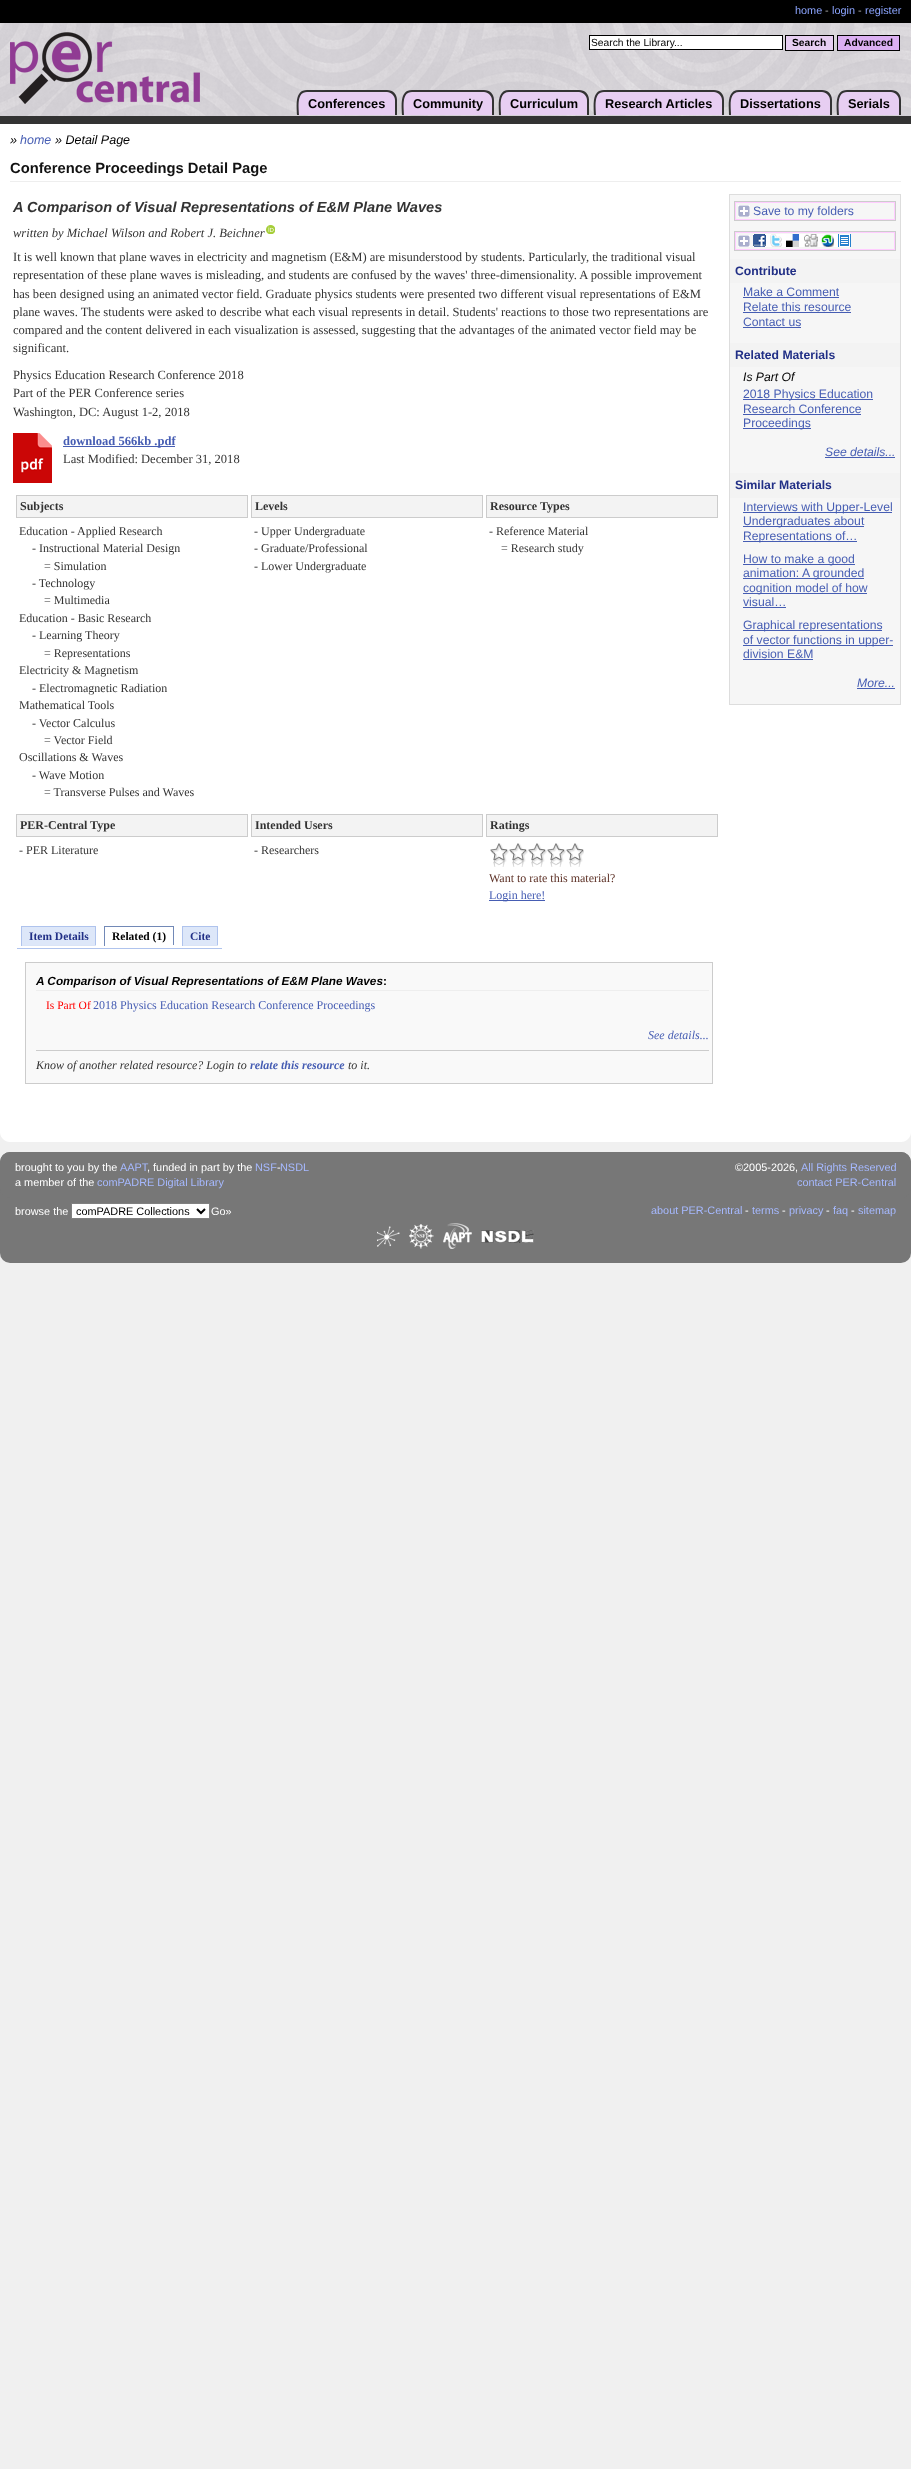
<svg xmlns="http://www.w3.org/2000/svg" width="911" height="2469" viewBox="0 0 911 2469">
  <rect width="100%" height="100%" fill="rgb(240,240,240)"/>
  <path d="M0 0H911V1132C911 1137.5 906.5 1142 901 1142H10C4.5 1142 0 1137.5 0 1132Z" fill="rgb(255,255,255)"/>
  <rect x="0" y="0" width="911" height="23" fill="rgb(0,0,0)"/>
  <text x="795" y="14" font-family="Liberation Sans" font-size="10.9" fill="rgb(140,165,255)">home</text>
  <text x="825" y="14" font-family="Liberation Sans" font-size="10.9" fill="rgb(168,168,168)">-</text>
  <text x="832" y="14" font-family="Liberation Sans" font-size="10.9" fill="rgb(140,165,255)">login</text>
  <text x="858" y="14" font-family="Liberation Sans" font-size="10.9" fill="rgb(168,168,168)">-</text>
  <text x="865" y="14" font-family="Liberation Sans" font-size="10.9" fill="rgb(140,165,255)">register</text>
  <image x="0" y="23" width="911" height="93" href="pic1.png"/>
  <rect x="0" y="116" width="911" height="8" fill="rgb(51,51,51)"/>
  <image x="10" y="32" width="190" height="72" href="pic2.png"/>
  <rect x="589.5" y="35.5" width="193" height="14" fill="rgb(255,255,255)" stroke="rgb(0,0,0)"/>
  <text x="591" y="46" font-family="Liberation Sans" font-size="10.25" fill="rgb(0,0,0)">Search the Library...</text>
  <rect x="785.5" y="35.5" width="48" height="15" fill="rgb(231,206,242)" stroke="rgb(0,0,0)"/>
  <text x="792" y="46" font-family="Liberation Sans" font-size="10.25" font-weight="bold" fill="rgb(0,0,0)">Search</text>
  <rect x="837.5" y="35.5" width="62" height="15" fill="rgb(219,175,242)" stroke="rgb(0,0,0)"/>
  <text x="844" y="46" font-family="Liberation Sans" font-size="10.25" font-weight="bold" fill="rgb(0,0,0)">Advanced</text>
  <path d="M307 90H387C392.5 90 397 94.5 397 100V115H297V100C297 94.5 301.5 90 307 90Z" fill="rgb(231,206,242)"/>
  <path d="M307 90H387C393 90 397 94 397 100V115H297C297 107 294 90 307 90ZM307 92H387C391 92 395 96 395 100V115H299C299 108 296 92 307 92Z" fill="rgb(51,51,51)" fill-rule="evenodd"/>
  <text x="308" y="108" font-family="Liberation Sans" font-size="12.75" font-weight="bold" fill="rgb(0,0,0)">Conferences</text>
  <path d="M412 90H484C489.5 90 494 94.5 494 100V115H402V100C402 94.5 406.5 90 412 90Z" fill="rgb(231,206,242)"/>
  <path d="M412 90H484C490 90 494 94 494 100V115H402C402 107 399 90 412 90ZM412 92H484C488 92 492 96 492 100V115H404C404 108 401 92 412 92Z" fill="rgb(51,51,51)" fill-rule="evenodd"/>
  <text x="413" y="108" font-family="Liberation Sans" font-size="12.75" font-weight="bold" fill="rgb(0,0,0)">Community</text>
  <path d="M509 90H579C584.5 90 589 94.5 589 100V115H499V100C499 94.5 503.5 90 509 90Z" fill="rgb(231,206,242)"/>
  <path d="M509 90H579C585 90 589 94 589 100V115H499C499 107 496 90 509 90ZM509 92H579C583 92 587 96 587 100V115H501C501 108 498 92 509 92Z" fill="rgb(51,51,51)" fill-rule="evenodd"/>
  <text x="510" y="108" font-family="Liberation Sans" font-size="12.75" font-weight="bold" fill="rgb(0,0,0)">Curriculum</text>
  <path d="M604 90H714C719.5 90 724 94.5 724 100V115H594V100C594 94.5 598.5 90 604 90Z" fill="rgb(231,206,242)"/>
  <path d="M604 90H714C720 90 724 94 724 100V115H594C594 107 591 90 604 90ZM604 92H714C718 92 722 96 722 100V115H596C596 108 593 92 604 92Z" fill="rgb(51,51,51)" fill-rule="evenodd"/>
  <text x="605" y="108" font-family="Liberation Sans" font-size="12.75" font-weight="bold" fill="rgb(0,0,0)">Research Articles</text>
  <path d="M739 90H822C827.5 90 832 94.5 832 100V115H729V100C729 94.5 733.5 90 739 90Z" fill="rgb(231,206,242)"/>
  <path d="M739 90H822C828 90 832 94 832 100V115H729C729 107 726 90 739 90ZM739 92H822C826 92 830 96 830 100V115H731C731 108 728 92 739 92Z" fill="rgb(51,51,51)" fill-rule="evenodd"/>
  <text x="740" y="108" font-family="Liberation Sans" font-size="12.75" font-weight="bold" fill="rgb(0,0,0)">Dissertations</text>
  <path d="M847 90H891C896.5 90 901 94.5 901 100V115H837V100C837 94.5 841.5 90 847 90Z" fill="rgb(231,206,242)"/>
  <path d="M847 90H891C897 90 901 94 901 100V115H837C837 107 834 90 847 90ZM847 92H891C895 92 899 96 899 100V115H839C839 108 836 92 847 92Z" fill="rgb(51,51,51)" fill-rule="evenodd"/>
  <text x="848" y="108" font-family="Liberation Sans" font-size="12.75" font-weight="bold" fill="rgb(0,0,0)">Serials</text>
  <text x="10" y="144" font-family="Liberation Sans" font-size="12.5" font-style="italic" fill="rgb(0,0,0)">»</text>
  <text x="20" y="144" font-family="Liberation Sans" font-size="12.5" font-style="italic" fill="rgb(70,93,179)">home</text>
  <text x="55" y="144" font-family="Liberation Sans" font-size="12.5" font-style="italic" fill="rgb(0,0,0)">» Detail Page</text>
  <rect x="10" y="181" width="891" height="1" fill="rgb(238,238,238)"/>
  <text x="10" y="173" font-family="Liberation Sans" font-size="14.75" font-weight="bold" fill="rgb(17,17,17)">Conference Proceedings Detail Page</text>
  <text x="13" y="212" font-family="Liberation Sans" font-size="14.6" font-weight="bold" font-style="italic" fill="rgb(51,51,51)">A Comparison of Visual Representations of E&amp;M Plane Waves</text>
  <text x="13" y="237" font-family="Liberation Serif" font-size="12.55" font-style="italic" fill="rgb(51,51,51)">written by Michael Wilson and Robert J. Beichner</text>
  <image x="266" y="225" width="9" height="9" href="pic3.png"/>
  <g font-family="Liberation Serif" font-size="12.55" fill="rgb(51,51,51)">
    <text>
      <tspan x="13" y="261">It is well known that plane waves in electricity and magnetism (E&amp;M) are misunderstood by students. Particularly, the traditional visual</tspan>
      <tspan x="13" y="279">representation of these plane waves is misleading, and students are confused by the waves' three-dimensionality. A possible improvement</tspan>
      <tspan x="13" y="298">has been designed using an animated vector field. Graduate physics students were presented two different visual representations of E&amp;M</tspan>
      <tspan x="13" y="316">plane waves. The students were asked to describe what each visual represents in detail. Students' reactions to those two representations are</tspan>
      <tspan x="13" y="334">compared and the content delivered in each visualization is assessed, suggesting that the advantages of the animated vector field may be</tspan>
      <tspan x="13" y="352">significant.</tspan>
    </text>
    <text>
      <tspan x="13" y="379">Physics Education Research Conference 2018</tspan>
      <tspan x="13" y="397">Part of the PER Conference series</tspan>
      <tspan x="13" y="416">Washington, DC: August 1-2, 2018</tspan>
    </text>
  </g>
  <image x="13" y="433" width="39" height="50" href="pic4.png"/>
  <rect x="63" y="446" width="112" height="1" fill="rgb(70,93,179)"/>
  <text x="63" y="445" font-family="Liberation Serif" font-size="12.55" font-weight="bold" fill="rgb(70,93,179)">download 566kb .pdf</text>
  <text x="63" y="463" font-family="Liberation Serif" font-size="12.55" fill="rgb(51,51,51)">Last Modified: December 31, 2018</text>
  <rect x="16.5" y="495.5" width="231" height="22" fill="rgb(243,243,243)" stroke="rgb(204,204,204)"/>
  <text x="20" y="510" font-family="Liberation Serif" font-size="12" font-weight="bold" fill="rgb(51,51,51)">Subjects</text>
  <rect x="251.5" y="495.5" width="231" height="22" fill="rgb(243,243,243)" stroke="rgb(204,204,204)"/>
  <text x="255" y="510" font-family="Liberation Serif" font-size="12" font-weight="bold" fill="rgb(51,51,51)">Levels</text>
  <rect x="486.5" y="495.5" width="231" height="22" fill="rgb(243,243,243)" stroke="rgb(204,204,204)"/>
  <text x="490" y="510" font-family="Liberation Serif" font-size="12" font-weight="bold" fill="rgb(51,51,51)">Resource Types</text>
  <g font-family="Liberation Serif" font-size="12" fill="rgb(51,51,51)">
    <text x="19" y="535">Education - Applied Research</text>
    <text x="32" y="552">- Instructional Material Design</text>
    <text x="44" y="570">= Simulation</text>
    <text x="32" y="587">- Technology</text>
    <text x="44" y="604">= Multimedia</text>
    <text x="19" y="622">Education - Basic Research</text>
    <text x="32" y="639">- Learning Theory</text>
    <text x="44" y="657">= Representations</text>
    <text x="19" y="674">Electricity &amp; Magnetism</text>
    <text x="32" y="692">- Electromagnetic Radiation</text>
    <text x="19" y="709">Mathematical Tools</text>
    <text x="32" y="727">- Vector Calculus</text>
    <text x="44" y="744">= Vector Field</text>
    <text x="19" y="761">Oscillations &amp; Waves</text>
    <text x="32" y="779">- Wave Motion</text>
    <text x="44" y="796">= Transverse Pulses and Waves</text>
    <text>
      <tspan x="254" y="535">- Upper Undergraduate</tspan>
      <tspan x="254" y="552">- Graduate/Professional</tspan>
      <tspan x="254" y="570">- Lower Undergraduate</tspan>
    </text>
    <text x="489" y="535">- Reference Material</text>
    <text x="501" y="552">= Research study</text>
  </g>
  <rect x="16.5" y="814.5" width="231" height="22" fill="rgb(243,243,243)" stroke="rgb(204,204,204)"/>
  <text x="20" y="829" font-family="Liberation Serif" font-size="12" font-weight="bold" fill="rgb(51,51,51)">PER-Central Type</text>
  <rect x="251.5" y="814.5" width="231" height="22" fill="rgb(243,243,243)" stroke="rgb(204,204,204)"/>
  <text x="255" y="829" font-family="Liberation Serif" font-size="12" font-weight="bold" fill="rgb(51,51,51)">Intended Users</text>
  <rect x="486.5" y="814.5" width="231" height="22" fill="rgb(243,243,243)" stroke="rgb(204,204,204)"/>
  <text x="490" y="829" font-family="Liberation Serif" font-size="12" font-weight="bold" fill="rgb(51,51,51)">Ratings</text>
  <g font-family="Liberation Serif" font-size="12" fill="rgb(51,51,51)">
    <text x="19" y="854">- PER Literature</text>
    <text x="254" y="854">- Researchers</text>
  </g>
  <image x="490" y="843" width="94" height="24" href="pic5.png"/>
  <text x="489" y="882" font-family="Liberation Serif" font-size="12" fill="rgb(93,49,38)">Want to rate this material?</text>
  <rect x="489" y="900" width="56" height="1" fill="rgb(70,93,179)"/>
  <text x="489" y="899" font-family="Liberation Serif" font-size="12" fill="rgb(70,93,179)">Login here!</text>
  <rect x="17" y="948" width="205" height="1" fill="rgb(175,195,237)"/>
  <rect x="22" y="927" width="73" height="18" fill="rgb(221,231,249)"/>
  <text x="29" y="940" font-family="Liberation Serif" font-size="11.5" font-weight="bold" fill="rgb(33,47,134)">Item Details</text>
  <rect x="21" y="926" width="75" height="1" fill="rgb(175,195,237)"/>
  <rect x="95" y="926" width="1" height="20" fill="rgb(175,195,237)"/>
  <rect x="21" y="945" width="75" height="1" fill="rgb(218,228,247)"/>
  <rect x="21" y="926" width="1" height="20" fill="rgb(175,195,237)"/>
  <text x="112" y="940" font-family="Liberation Serif" font-size="11.5" font-weight="bold" fill="rgb(0,0,0)">Related (1)</text>
  <rect x="104" y="926" width="70" height="1" fill="rgb(114,137,183)"/>
  <rect x="173" y="926" width="1" height="20" fill="rgb(114,137,183)"/>
  <rect x="173" y="945" width="1" height="1" fill="rgb(255,255,255)"/>
  <rect x="104" y="926" width="1" height="20" fill="rgb(114,137,183)"/>
  <rect x="183" y="927" width="34" height="18" fill="rgb(221,231,249)"/>
  <text x="190" y="940" font-family="Liberation Serif" font-size="11.5" font-weight="bold" fill="rgb(33,47,134)">Cite</text>
  <rect x="182" y="926" width="36" height="1" fill="rgb(175,195,237)"/>
  <rect x="217" y="926" width="1" height="20" fill="rgb(175,195,237)"/>
  <rect x="182" y="945" width="36" height="1" fill="rgb(218,228,247)"/>
  <rect x="182" y="926" width="1" height="20" fill="rgb(175,195,237)"/>
  <rect x="25.5" y="962.5" width="687" height="121" fill="rgb(249,249,249)" stroke="rgb(204,204,204)"/>
  <rect x="36" y="990" width="673" height="1" fill="rgb(238,238,238)"/>
  <text x="36" y="985" font-family="Liberation Sans" font-size="11.8" font-weight="bold" font-style="italic" fill="rgb(0,0,0)">A Comparison of Visual Representations of E&amp;M Plane Waves</text>
  <text x="383" y="985" font-family="Liberation Sans" font-size="11.8" font-weight="bold" fill="rgb(0,0,0)">:</text>
  <text x="46" y="1009" font-family="Liberation Serif" font-size="11.5" fill="rgb(255,0,0)">Is Part Of</text>
  <text x="93" y="1009" font-family="Liberation Serif" font-size="12" fill="rgb(70,93,179)">2018 Physics Education Research Conference Proceedings</text>
  <text x="648" y="1039" font-family="Liberation Serif" font-size="12" font-style="italic" fill="rgb(70,93,179)">See details...</text>
  <rect x="36" y="1050" width="673" height="1" fill="rgb(204,204,204)"/>
  <text x="36" y="1069" font-family="Liberation Serif" font-size="12" font-style="italic" fill="rgb(51,51,51)">Know of another related resource? Login to</text>
  <text x="250" y="1069" font-family="Liberation Serif" font-size="12" font-weight="bold" font-style="italic" fill="rgb(70,93,179)">relate this resource</text>
  <text x="348" y="1069" font-family="Liberation Serif" font-size="12" font-style="italic" fill="rgb(51,51,51)">to it.</text>
  <rect x="729.5" y="194.5" width="171" height="510" fill="rgb(246,246,246)" stroke="rgb(221,221,221)"/>
  <rect x="735.5" y="202.5" width="159" height="17" fill="none" stroke="rgb(255,204,255)"/>
  <image x="738" y="205" width="12" height="12" href="pic6.png"/>
  <rect x="734.5" y="201.5" width="161" height="19" fill="none" stroke="rgb(204,204,204)"/>
  <text x="753" y="215" font-family="Liberation Sans" font-size="12.2" fill="rgb(70,93,179)">Save to my folders</text>
  <rect x="735.5" y="232.5" width="159" height="17" fill="none" stroke="rgb(255,204,255)"/>
  <image x="738" y="235" width="12" height="12" href="pic6.png"/>
  <image x="753" y="234" width="98" height="13" href="pic7.png"/>
  <rect x="734.5" y="231.5" width="161" height="19" fill="none" stroke="rgb(204,204,204)"/>
  <rect x="730" y="259" width="170" height="24" fill="rgb(243,243,243)"/>
  <text x="735" y="275" font-family="Liberation Sans" font-size="12.2" font-weight="bold" fill="rgb(33,47,134)">Contribute</text>
  <text x="743" y="296" font-family="Liberation Sans" font-size="12.2" fill="rgb(70,93,179)">Make a Comment</text>
  <rect x="743" y="297" width="96" height="1" fill="rgb(70,93,179)"/>
  <text x="743" y="311" font-family="Liberation Sans" font-size="12.2" fill="rgb(70,93,179)">Relate this resource</text>
  <rect x="743" y="312" width="108" height="1" fill="rgb(70,93,179)"/>
  <text x="743" y="326" font-family="Liberation Sans" font-size="12.2" fill="rgb(70,93,179)">Contact us</text>
  <rect x="743" y="327" width="58" height="1" fill="rgb(70,93,179)"/>
  <rect x="730" y="343" width="170" height="24" fill="rgb(243,243,243)"/>
  <text x="735" y="359" font-family="Liberation Sans" font-size="12.2" font-weight="bold" fill="rgb(33,47,134)">Related Materials</text>
  <text x="743" y="381" font-family="Liberation Sans" font-size="12.2" font-style="italic" fill="rgb(0,0,0)">Is Part Of</text>
  <rect x="743" y="399" width="130" height="1" fill="rgb(70,93,179)"/>
  <g font-family="Liberation Sans" font-size="12.2" fill="rgb(70,93,179)">
    <text>
      <tspan x="743" y="398">2018 Physics Education</tspan>
      <tspan x="743" y="413">Research Conference</tspan>
    </text>
  </g>
  <rect x="743" y="414" width="118" height="1" fill="rgb(70,93,179)"/>
  <rect x="743" y="428" width="68" height="1" fill="rgb(70,93,179)"/>
  <text x="743" y="427" font-family="Liberation Sans" font-size="12.2" fill="rgb(70,93,179)">Proceedings</text>
  <text x="825" y="456" font-family="Liberation Sans" font-size="12.2" font-style="italic" fill="rgb(70,93,179)">See details...</text>
  <rect x="825" y="457" width="70" height="1" fill="rgb(70,93,179)"/>
  <rect x="730" y="473" width="170" height="25" fill="rgb(243,243,243)"/>
  <text x="735" y="489" font-family="Liberation Sans" font-size="12.2" font-weight="bold" fill="rgb(33,47,134)">Similar Materials</text>
  <rect x="743" y="512" width="149" height="1" fill="rgb(70,93,179)"/>
  <text x="743" y="511" font-family="Liberation Sans" font-size="12.2" fill="rgb(70,93,179)">Interviews with Upper-Level</text>
  <rect x="743" y="526" width="121" height="1" fill="rgb(70,93,179)"/>
  <text x="743" y="525" font-family="Liberation Sans" font-size="12.2" fill="rgb(70,93,179)">Undergraduates about</text>
  <rect x="743" y="541" width="114" height="1" fill="rgb(70,93,179)"/>
  <text x="743" y="540" font-family="Liberation Sans" font-size="12.2" fill="rgb(70,93,179)">Representations of…</text>
  <rect x="743" y="564" width="112" height="1" fill="rgb(70,93,179)"/>
  <text x="743" y="563" font-family="Liberation Sans" font-size="12.2" fill="rgb(70,93,179)">How to make a good</text>
  <rect x="743" y="578" width="121" height="1" fill="rgb(70,93,179)"/>
  <text x="743" y="577" font-family="Liberation Sans" font-size="12.2" fill="rgb(70,93,179)">animation: A grounded</text>
  <rect x="743" y="593" width="124" height="1" fill="rgb(70,93,179)"/>
  <g font-family="Liberation Sans" font-size="12.2" fill="rgb(70,93,179)">
    <text>
      <tspan x="743" y="592">cognition model of how</tspan>
      <tspan x="743" y="606">visual…</tspan>
    </text>
  </g>
  <rect x="743" y="607" width="43" height="1" fill="rgb(70,93,179)"/>
  <rect x="743" y="630" width="139" height="1" fill="rgb(70,93,179)"/>
  <text x="743" y="629" font-family="Liberation Sans" font-size="12.2" fill="rgb(70,93,179)">Graphical representations</text>
  <rect x="743" y="645" width="150" height="1" fill="rgb(70,93,179)"/>
  <g font-family="Liberation Sans" font-size="12.2" fill="rgb(70,93,179)">
    <text>
      <tspan x="743" y="644">of vector functions in upper-</tspan>
      <tspan x="743" y="658">division E&amp;M</tspan>
    </text>
  </g>
  <rect x="743" y="659" width="70" height="1" fill="rgb(70,93,179)"/>
  <text x="857" y="687" font-family="Liberation Sans" font-size="12.2" font-style="italic" fill="rgb(70,93,179)">More...</text>
  <rect x="857" y="688" width="38" height="1" fill="rgb(70,93,179)"/>
  <rect x="0" y="1152" width="911" height="111" rx="10" fill="rgb(119,119,119)"/>
  <rect x="0" y="1152" width="911" height="46" rx="10" fill="rgb(119,119,119)"/>
  <text x="15" y="1171" font-family="Liberation Sans" font-size="10.9" fill="rgb(255,255,255)">brought to you by the</text>
  <text x="120" y="1171" font-family="Liberation Sans" font-size="10.9" fill="rgb(166,185,255)">AAPT</text>
  <text x="147" y="1171" font-family="Liberation Sans" font-size="10.9" fill="rgb(255,255,255)">, funded in part by the</text>
  <text x="255" y="1171" font-family="Liberation Sans" font-size="10.9" fill="rgb(166,185,255)">NSF</text>
  <text x="277" y="1171" font-family="Liberation Sans" font-size="10.9" fill="rgb(255,255,255)">-</text>
  <text x="280" y="1171" font-family="Liberation Sans" font-size="10.9" fill="rgb(166,185,255)">NSDL</text>
  <text x="15" y="1186" font-family="Liberation Sans" font-size="10.9" fill="rgb(255,255,255)">a member of the</text>
  <text x="97" y="1186" font-family="Liberation Sans" font-size="10.9" fill="rgb(166,185,255)">comPADRE Digital Library</text>
  <text x="735" y="1171" font-family="Liberation Sans" font-size="10.9" fill="rgb(255,255,255)">©2005-2026,</text>
  <g font-family="Liberation Sans" font-size="10.9" fill="rgb(166,185,255)">
    <text x="801" y="1171">All Rights Reserved</text>
    <text x="797" y="1186">contact PER-Central</text>
  </g>
  <text x="15" y="1215" font-family="Liberation Sans" font-size="10.9" fill="rgb(255,255,255)">browse the</text>
  <rect x="71.5" y="1203.5" width="138" height="15" fill="rgb(255,255,255)" stroke="rgb(128,128,128)"/>
  <path d="M197 1209L201 1213L205 1209" fill="none" stroke="rgb(0,0,0)" stroke-width="2"/>
  <text x="76" y="1215" font-family="Liberation Sans" font-size="10.9" fill="rgb(0,0,0)">comPADRE Collections</text>
  <text x="211" y="1215" font-family="Liberation Sans" font-size="10.9" fill="rgb(255,255,255)">Go»</text>
  <text x="651" y="1214" font-family="Liberation Sans" font-size="10.9" fill="rgb(166,185,255)">about PER-Central</text>
  <text x="745" y="1214" font-family="Liberation Sans" font-size="10.9" fill="rgb(255,255,255)">-</text>
  <text x="752" y="1214" font-family="Liberation Sans" font-size="10.9" fill="rgb(166,185,255)">terms</text>
  <text x="782" y="1214" font-family="Liberation Sans" font-size="10.9" fill="rgb(255,255,255)">-</text>
  <text x="789" y="1214" font-family="Liberation Sans" font-size="10.9" fill="rgb(166,185,255)">privacy</text>
  <text x="826" y="1214" font-family="Liberation Sans" font-size="10.9" fill="rgb(255,255,255)">-</text>
  <text x="833" y="1214" font-family="Liberation Sans" font-size="10.9" fill="rgb(166,185,255)">faq</text>
  <text x="851" y="1214" font-family="Liberation Sans" font-size="10.9" fill="rgb(255,255,255)">-</text>
  <text x="858" y="1214" font-family="Liberation Sans" font-size="10.9" fill="rgb(166,185,255)">sitemap</text>
  <image x="377" y="1226" width="23" height="21" href="pic8.png"/>
  <image x="409" y="1224" width="25" height="25" href="pic9.png"/>
  <image x="443" y="1223" width="29" height="26" href="pic10.png"/>
  <image x="481" y="1230" width="53" height="13" href="pic11.png"/>
</svg>
